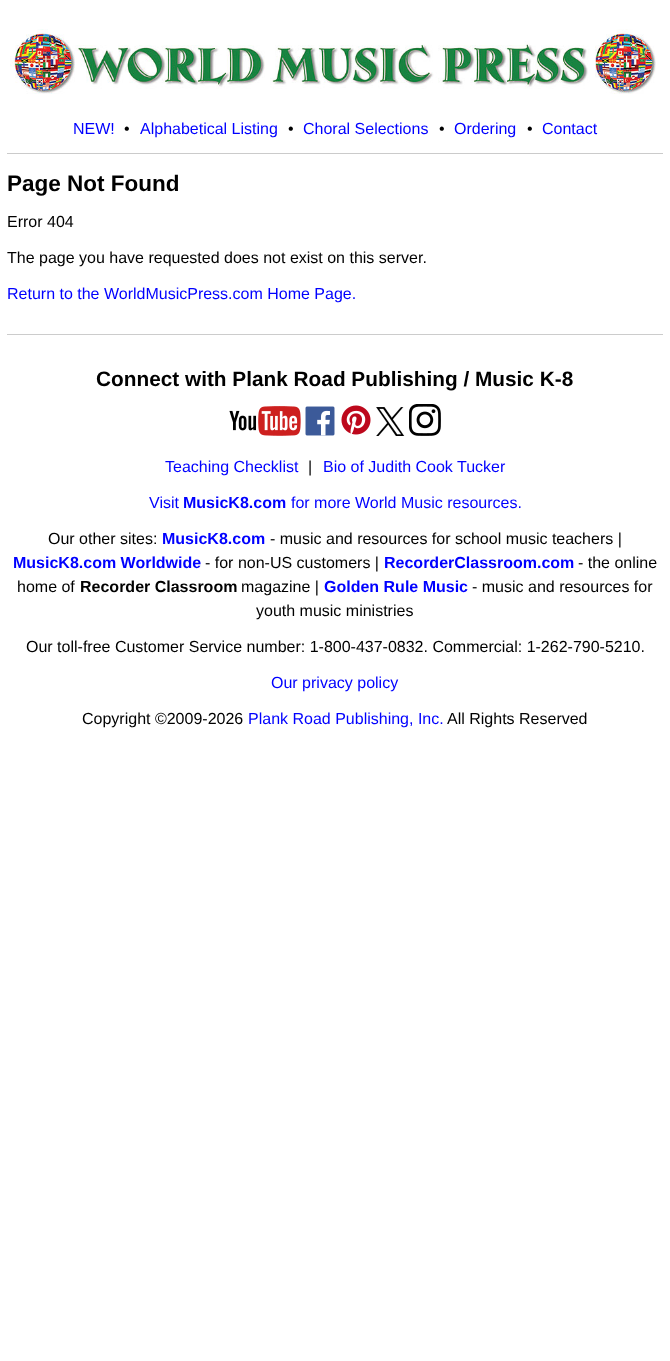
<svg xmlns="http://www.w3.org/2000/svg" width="670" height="1361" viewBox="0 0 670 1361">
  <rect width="100%" height="100%" fill="rgb(255,255,255)"/>
  <rect x="7" y="153" width="656" height="1" fill="rgb(203,203,203)"/>
  <image x="10" y="29" width="646" height="65" href="pic1.png"/>
  <text x="73" y="134" font-family="Liberation Sans" font-size="16" fill="rgb(0,0,255)">NEW!</text>
  <text x="124" y="134" font-family="Liberation Sans" font-size="16" fill="rgb(0,0,0)">•</text>
  <text x="140" y="134" font-family="Liberation Sans" font-size="16" fill="rgb(0,0,255)">Alphabetical Listing</text>
  <text x="288" y="134" font-family="Liberation Sans" font-size="16" fill="rgb(0,0,0)">•</text>
  <text x="303" y="134" font-family="Liberation Sans" font-size="16" fill="rgb(0,0,255)">Choral Selections</text>
  <text x="439" y="134" font-family="Liberation Sans" font-size="16" fill="rgb(0,0,0)">•</text>
  <text x="454" y="134" font-family="Liberation Sans" font-size="16" fill="rgb(0,0,255)">Ordering</text>
  <text x="527" y="134" font-family="Liberation Sans" font-size="16" fill="rgb(0,0,0)">•</text>
  <text x="542" y="134" font-family="Liberation Sans" font-size="16" fill="rgb(0,0,255)">Contact</text>
  <text x="7" y="191" font-family="Liberation Sans" font-size="22.5" font-weight="bold" fill="rgb(0,0,0)">Page Not Found</text>
  <g font-family="Liberation Sans" font-size="16" fill="rgb(0,0,0)">
    <text x="7" y="227">Error 404</text>
    <text x="7" y="263">The page you have requested does not exist on this server.</text>
  </g>
  <text x="7" y="299" font-family="Liberation Sans" font-size="16" fill="rgb(0,0,255)">Return to the WorldMusicPress.com Home Page.</text>
  <rect x="7" y="334" width="656" height="1" fill="rgb(204,204,204)"/>
  <text x="96" y="386" font-family="Liberation Sans" font-size="20.8" font-weight="bold" fill="rgb(0,0,0)">Connect with Plank Road Publishing / Music K-8</text>
  <image x="229" y="406" width="72" height="30" href="pic2.png"/>
  <image x="305" y="406" width="30" height="30" href="pic3.png"/>
  <image x="341" y="405" width="30" height="30" href="pic4.png"/>
  <image x="376" y="407" width="29" height="29" href="pic5.png"/>
  <image x="409" y="404" width="32" height="32" href="pic6.png"/>
  <text x="165" y="472" font-family="Liberation Sans" font-size="16" fill="rgb(0,0,255)">Teaching Checklist</text>
  <text x="308" y="472" font-family="Liberation Sans" font-size="16" fill="rgb(0,0,0)">|</text>
  <g font-family="Liberation Sans" font-size="16" fill="rgb(0,0,255)">
    <text x="323" y="472">Bio of Judith Cook Tucker</text>
    <text x="149" y="508">Visit</text>
  </g>
  <text x="183" y="508" font-family="Liberation Sans" font-size="16" font-weight="bold" fill="rgb(0,0,255)">MusicK8.com</text>
  <text x="291" y="508" font-family="Liberation Sans" font-size="16" fill="rgb(0,0,255)">for more World Music resources.</text>
  <text x="48" y="544" font-family="Liberation Sans" font-size="16" fill="rgb(0,0,0)">Our other sites:</text>
  <text x="162" y="544" font-family="Liberation Sans" font-size="16" font-weight="bold" fill="rgb(0,0,255)">MusicK8.com</text>
  <text x="270" y="544" font-family="Liberation Sans" font-size="16" fill="rgb(0,0,0)">- music and resources for school music teachers |</text>
  <text x="13" y="568" font-family="Liberation Sans" font-size="16" font-weight="bold" fill="rgb(0,0,255)">MusicK8.com Worldwide</text>
  <text x="205" y="568" font-family="Liberation Sans" font-size="16" fill="rgb(0,0,0)">- for non-US customers |</text>
  <text x="384" y="568" font-family="Liberation Sans" font-size="16" font-weight="bold" fill="rgb(0,0,255)">RecorderClassroom.com</text>
  <g font-family="Liberation Sans" font-size="16" fill="rgb(0,0,0)">
    <text x="578" y="568">- the online</text>
    <text x="17" y="592">home of</text>
  </g>
  <text x="80" y="592" font-family="Liberation Sans" font-size="16" font-weight="bold" fill="rgb(0,0,0)">Recorder Classroom</text>
  <text x="241" y="592" font-family="Liberation Sans" font-size="16" fill="rgb(0,0,0)">magazine |</text>
  <text x="324" y="592" font-family="Liberation Sans" font-size="16" font-weight="bold" fill="rgb(0,0,255)">Golden Rule Music</text>
  <g font-family="Liberation Sans" font-size="16" fill="rgb(0,0,0)">
    <text x="472" y="592">- music and resources for</text>
    <text x="256" y="616">youth music ministries</text>
    <text x="26" y="652">Our toll-free Customer Service number: 1-800-437-0832. Commercial: 1-262-790-5210.</text>
  </g>
  <text x="271" y="688" font-family="Liberation Sans" font-size="16" fill="rgb(0,0,255)">Our privacy policy</text>
  <text x="82" y="724" font-family="Liberation Sans" font-size="16" fill="rgb(0,0,0)">Copyright ©2009-2026</text>
  <text x="248" y="724" font-family="Liberation Sans" font-size="16" fill="rgb(0,0,255)">Plank Road Publishing, Inc.</text>
  <text x="447" y="724" font-family="Liberation Sans" font-size="16" fill="rgb(0,0,0)">All Rights Reserved</text>
</svg>
